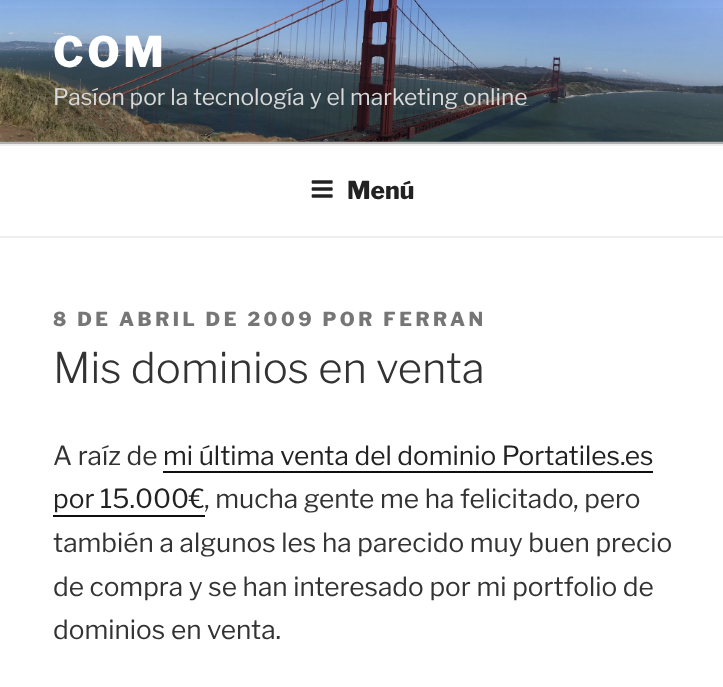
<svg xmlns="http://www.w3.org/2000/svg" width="723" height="687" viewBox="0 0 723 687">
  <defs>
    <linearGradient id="g1" gradientUnits="userSpaceOnUse" x1="362" y1="0" x2="362" y2="144"><stop offset="0" stop-color="rgb(0,0,0)" stop-opacity="0"/><stop offset="0.75" stop-color="rgb(0,0,0)" stop-opacity="0.3"/><stop offset="1" stop-color="rgb(0,0,0)" stop-opacity="0.3"/></linearGradient>
  </defs>
  <rect width="100%" height="100%" fill="rgb(255,255,255)"/>
  <rect x="0" y="141" width="723" height="3" fill="rgb(250,250,250)"/>
  <image x="0" y="0" width="723" height="142" href="pic1.png"/>
  <rect x="0" y="8" width="723" height="136" fill="url(#g1)"/>
  <text x="53" y="67" font-family="Libre Franklin" font-size="42" font-weight="800" letter-spacing="3.5" fill="rgb(255,255,255)">COM</text>
  <text x="53" y="105" font-family="Libre Franklin" font-size="22.75" fill="rgb(216,217,217)">Pasíon por la tecnología y el marketing online</text>
  <rect x="0" y="144" width="723" height="2" fill="rgb(238,238,238)"/>
  <rect x="0" y="236" width="723" height="2" fill="rgb(238,238,238)"/>
  <image x="311" y="180" width="22" height="18" href="pic2.png"/>
  <text x="347" y="199" font-family="Libre Franklin" font-size="24.5" font-weight="800" fill="rgb(34,34,34)">Menú</text>
  <text x="53" y="326" font-family="Libre Franklin" font-size="19.25" font-weight="800" letter-spacing="3.5" fill="rgb(118,118,118)">8 DE ABRIL DE 2009 POR FERRAN</text>
  <text x="53" y="383" font-family="Libre Franklin" font-size="42" font-weight="300" fill="rgb(51,51,51)">Mis dominios en venta</text>
  <text x="53" y="465" font-family="Libre Franklin" font-size="26.25" fill="rgb(51,51,51)">A raíz de</text>
  <text x="163" y="465" font-family="Libre Franklin" font-size="26.25" fill="rgb(34,34,34)">mi última venta del dominio Portatiles.es</text>
  <rect x="163" y="471" width="490" height="2" fill="rgb(15,15,15)"/>
  <text x="53" y="508" font-family="Libre Franklin" font-size="26.25" fill="rgb(34,34,34)">por 15.000€</text>
  <rect x="53" y="515" width="152" height="2" fill="rgb(15,15,15)"/>
  <g font-family="Libre Franklin" font-size="26.25" fill="rgb(51,51,51)">
    <text x="204" y="508">, mucha gente me ha felicitado, pero</text>
    <text>
      <tspan x="53" y="552">también a algunos les ha parecido muy buen precio</tspan>
      <tspan x="53" y="596">de compra y se han interesado por mi portfolio de</tspan>
      <tspan x="53" y="639">dominios en venta.</tspan>
    </text>
  </g>
</svg>
